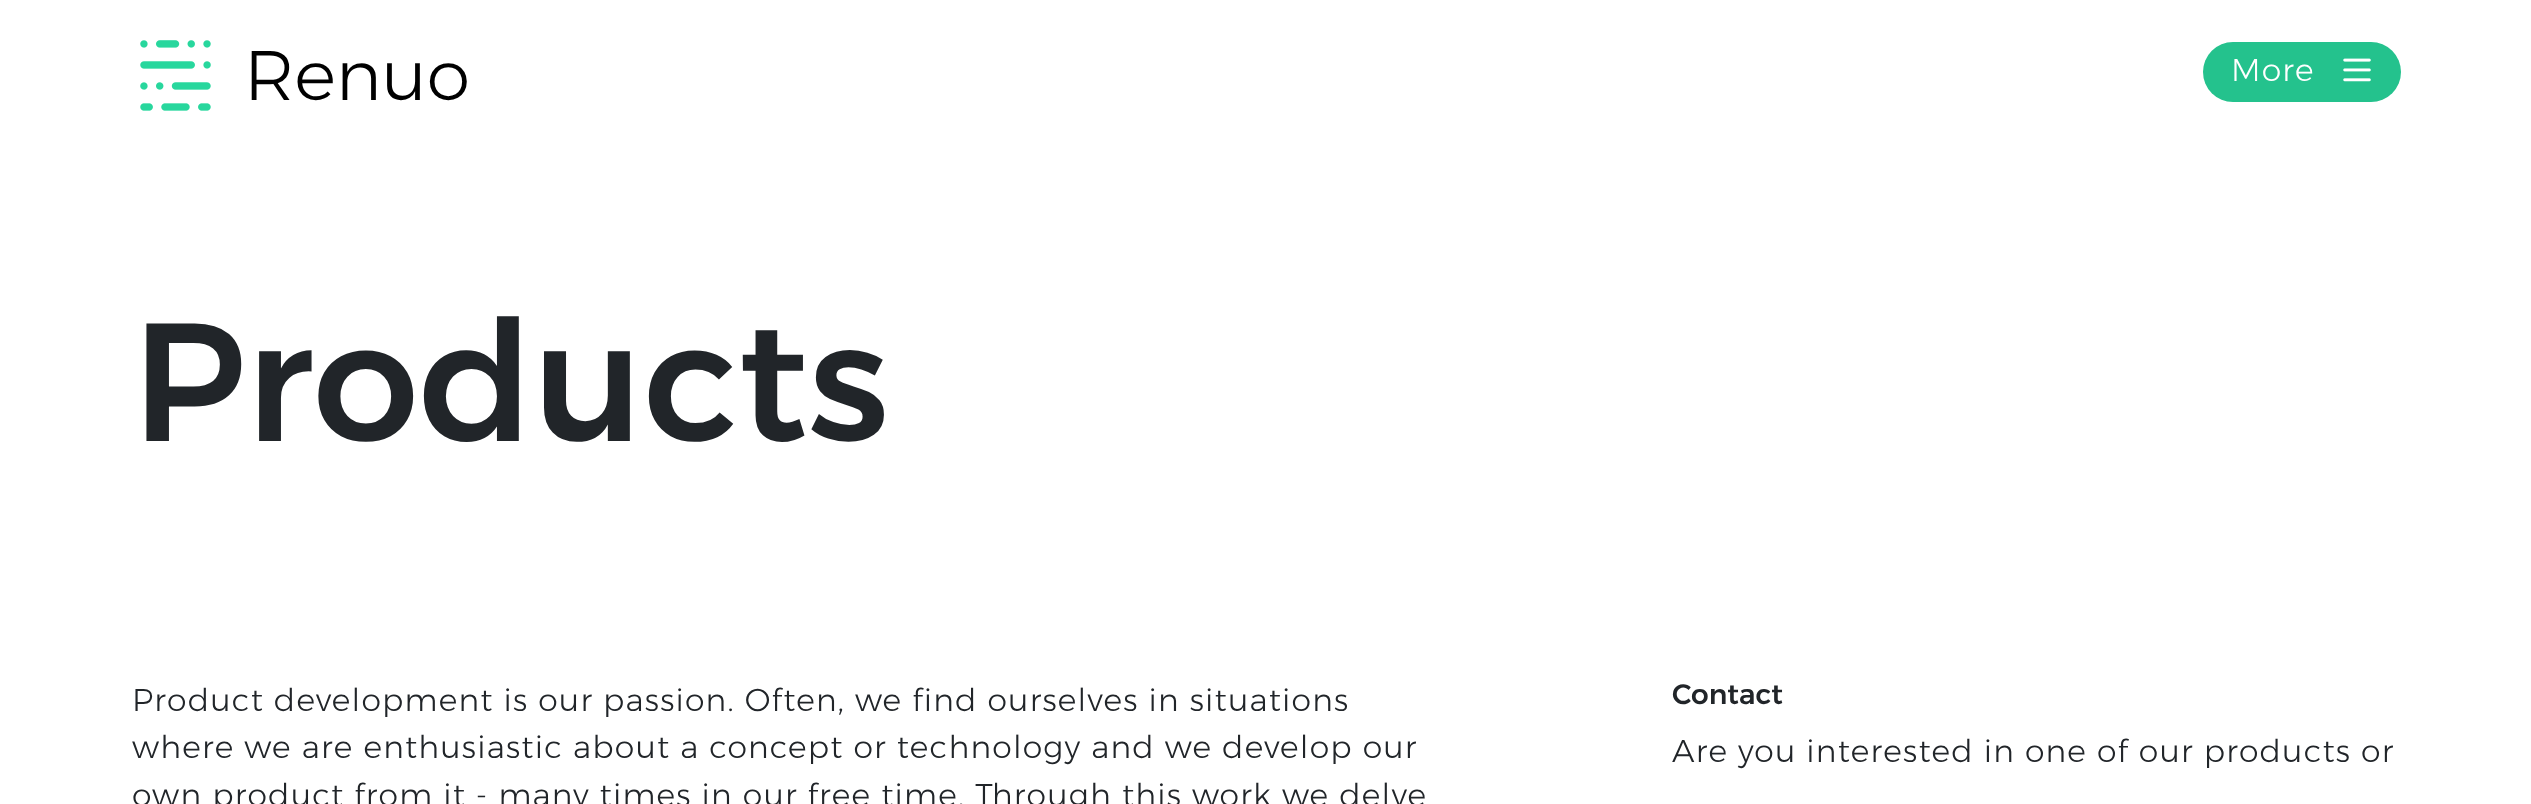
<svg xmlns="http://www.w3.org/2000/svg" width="2531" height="804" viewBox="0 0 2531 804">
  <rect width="100%" height="100%" fill="rgb(255,255,255)"/>
  <image x="140" y="40" width="71" height="71" href="pic1.png"/>
  <text x="244" y="100" font-family="Montserrat" font-size="70" font-weight="300" fill="rgb(0,0,0)">Renuo</text>
  <rect x="2203" y="42" width="198" height="60" rx="30" fill="rgb(36,194,141)"/>
  <text x="2231" y="81" font-family="Montserrat" font-size="31.5" font-weight="300" letter-spacing="1.22" fill="rgb(255,255,255)">More</text>
  <image x="2343" y="58" width="28" height="24" href="pic2.png"/>
  <text x="132" y="441" font-family="Montserrat" font-size="168" font-weight="500" fill="rgb(33,37,41)">Products</text>
  <g font-family="Montserrat" font-size="31.5" font-weight="300" letter-spacing="1.22" fill="rgb(33,37,41)">
    <text>
      <tspan x="132" y="711">Product development is our passion. Often, we find ourselves in situations</tspan>
      <tspan x="132" y="758">where we are enthusiastic about a concept or technology and we develop our</tspan>
      <tspan x="132" y="806">own product from it - many times in our free time. Through this work we delve</tspan>
    </text>
  </g>
  <text x="1672" y="704" font-family="Montserrat" font-size="28" font-weight="500" fill="rgb(33,37,41)">Contact</text>
  <text x="1672" y="762" font-family="Montserrat" font-size="31.5" font-weight="300" letter-spacing="1.22" fill="rgb(33,37,41)">Are you interested in one of our products or</text>
</svg>
